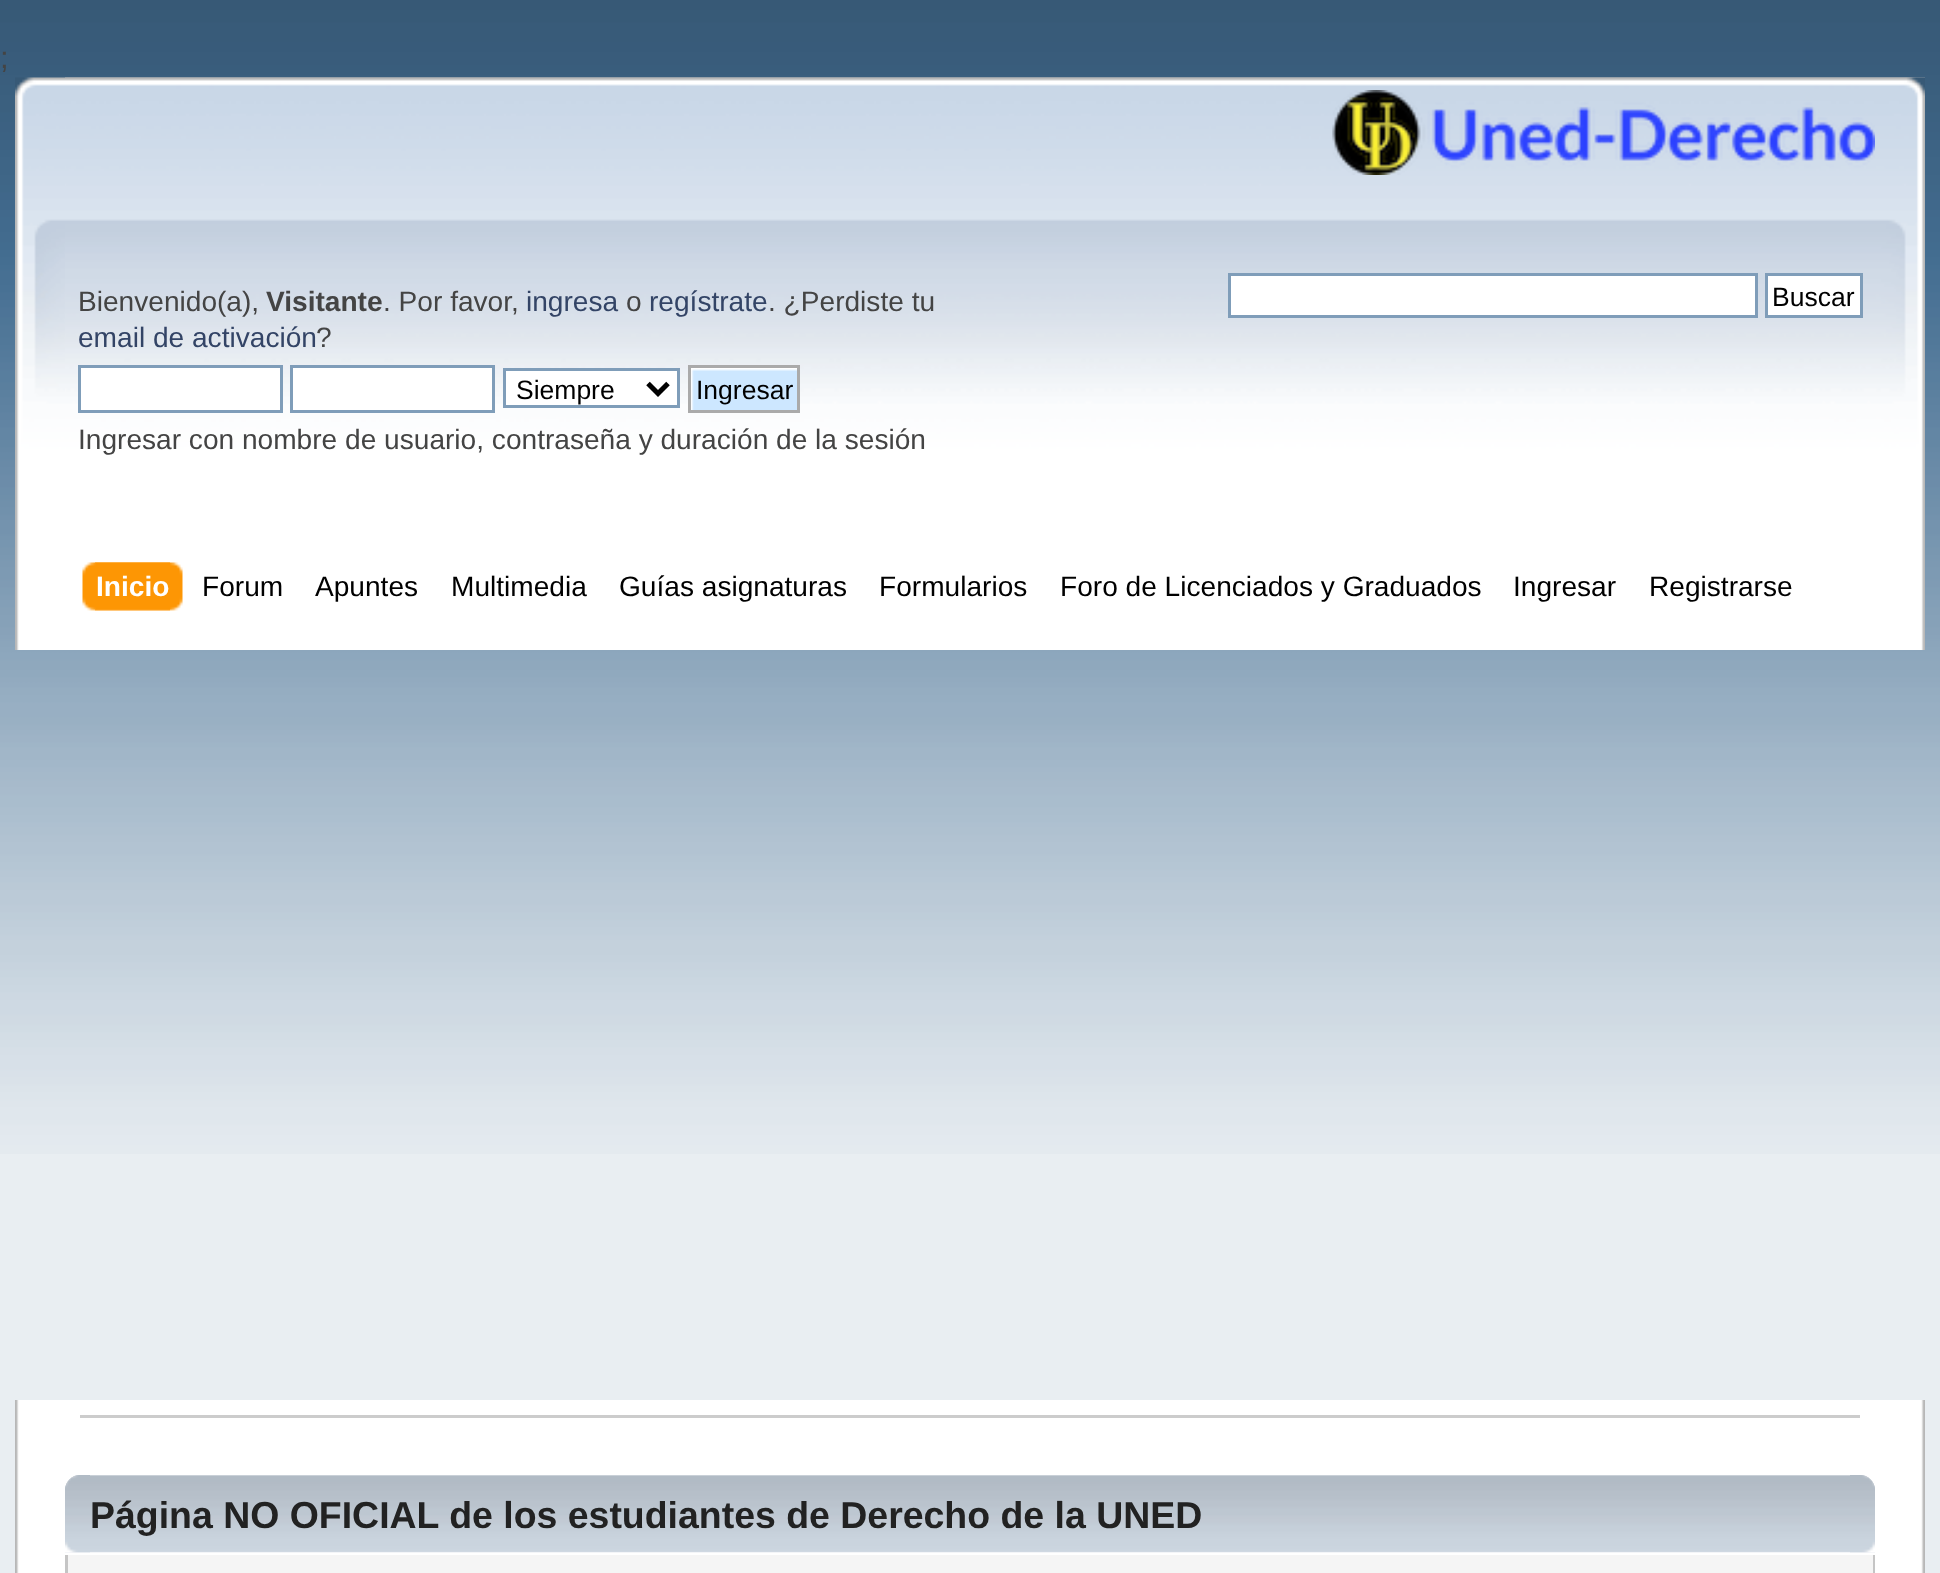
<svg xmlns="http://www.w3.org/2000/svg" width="1940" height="1573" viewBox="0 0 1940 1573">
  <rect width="100%" height="100%" fill="rgb(233,238,242)"/>
  <image x="0" y="0" width="1940" height="1154" href="pic1.png"/>
  <text x="0" y="68" font-family="Liberation Sans" font-size="31" fill="rgb(68,68,68)">;</text>
  <image x="15" y="77" width="1910" height="573" href="pic2.png"/>
  <image x="65" y="77" width="1860" height="573" href="pic3.png"/>
  <image x="1332" y="90" width="543" height="85" href="pic4.png"/>
  <text x="78" y="311" font-family="Liberation Sans" font-size="28.1" fill="rgb(68,68,68)">Bienvenido(a),</text>
  <text x="266" y="311" font-family="Liberation Sans" font-size="28.1" font-weight="bold" fill="rgb(68,68,68)">Visitante</text>
  <text x="383" y="311" font-family="Liberation Sans" font-size="28.1" fill="rgb(68,68,68)">. Por favor,</text>
  <text x="526" y="311" font-family="Liberation Sans" font-size="28.1" fill="rgb(51,68,102)">ingresa</text>
  <text x="626" y="311" font-family="Liberation Sans" font-size="28.1" fill="rgb(68,68,68)">o</text>
  <text x="649" y="311" font-family="Liberation Sans" font-size="28.1" fill="rgb(51,68,102)">regístrate</text>
  <text x="768" y="311" font-family="Liberation Sans" font-size="28.1" fill="rgb(68,68,68)">. ¿Perdiste tu</text>
  <text x="78" y="347" font-family="Liberation Sans" font-size="28.1" fill="rgb(51,68,102)">email de activación</text>
  <text x="316" y="347" font-family="Liberation Sans" font-size="28.1" fill="rgb(68,68,68)">?</text>
  <rect x="79.5" y="366.5" width="202" height="45" fill="rgb(255,255,255)" stroke="rgb(127,157,185)" stroke-width="3"/>
  <rect x="291.5" y="366.5" width="202" height="45" fill="rgb(255,255,255)" stroke="rgb(127,157,185)" stroke-width="3"/>
  <rect x="504.5" y="369.5" width="174" height="37" fill="rgb(255,255,255)" stroke="rgb(127,157,185)" stroke-width="3"/>
  <path d="M648 383.5L658 393.5L668 383.5" fill="none" stroke="rgb(0,0,0)" stroke-width="5"/>
  <text x="516" y="399" font-family="Liberation Sans" font-size="26.5" fill="rgb(0,0,0)">Siempre</text>
  <image x="691" y="368" width="106" height="42" href="pic5.png"/>
  <rect x="689.5" y="366.5" width="109" height="45" fill="none" stroke="rgb(170,170,170)" stroke-width="3"/>
  <text x="696" y="399" font-family="Liberation Sans" font-size="26.5" fill="rgb(0,0,0)">Ingresar</text>
  <text x="78" y="449" font-family="Liberation Sans" font-size="28.1" fill="rgb(68,68,68)">Ingresar con nombre de usuario, contraseña y duración de la sesión</text>
  <rect x="1229.5" y="274.5" width="527" height="42" fill="rgb(255,255,255)" stroke="rgb(127,157,185)" stroke-width="3"/>
  <rect x="1766.5" y="274.5" width="95" height="42" fill="rgb(255,255,255)" stroke="rgb(127,157,185)" stroke-width="3"/>
  <text x="1772" y="306" font-family="Liberation Sans" font-size="26.5" fill="rgb(0,0,0)">Buscar</text>
  <image x="95" y="562" width="88" height="49" href="pic6.png"/>
  <image x="82" y="562" width="88" height="49" href="pic7.png"/>
  <text x="96" y="596" font-family="Liberation Sans" font-size="28.1" font-weight="bold" fill="rgb(255,255,255)">Inicio</text>
  <g font-family="Liberation Sans" font-size="28.1" fill="rgb(0,0,0)">
    <text x="202" y="596">Forum</text>
    <text x="315" y="596">Apuntes</text>
    <text x="451" y="596">Multimedia</text>
    <text x="619" y="596">Guías asignaturas</text>
    <text x="879" y="596">Formularios</text>
    <text x="1060" y="596">Foro de Licenciados y Graduados</text>
    <text x="1513" y="596">Ingresar</text>
    <text x="1649" y="596">Registrarse</text>
  </g>
  <rect x="19" y="1400" width="1902" height="173" fill="rgb(255,255,255)"/>
  <image x="15" y="1400" width="4" height="173" href="pic8.png"/>
  <image x="1921" y="1400" width="4" height="173" href="pic9.png"/>
  <rect x="80" y="1415" width="1780" height="3" fill="rgb(204,204,204)"/>
  <image x="65" y="1475" width="1810" height="78" href="pic10.png"/>
  <image x="65" y="1475" width="25" height="78" href="pic11.png"/>
  <text x="90" y="1528" font-family="Liberation Sans" font-size="37.45" font-weight="bold" fill="rgb(34,34,34)">Página NO OFICIAL de los estudiantes de Derecho de la UNED</text>
  <image x="1850" y="1475" width="25" height="78" href="pic12.png"/>
  <rect x="68" y="1555" width="1805" height="18" fill="rgb(245,245,245)"/>
  <rect x="1873" y="1555" width="2" height="18" fill="rgb(197,197,197)"/>
  <rect x="65" y="1555" width="3" height="18" fill="rgb(197,197,197)"/>
</svg>
